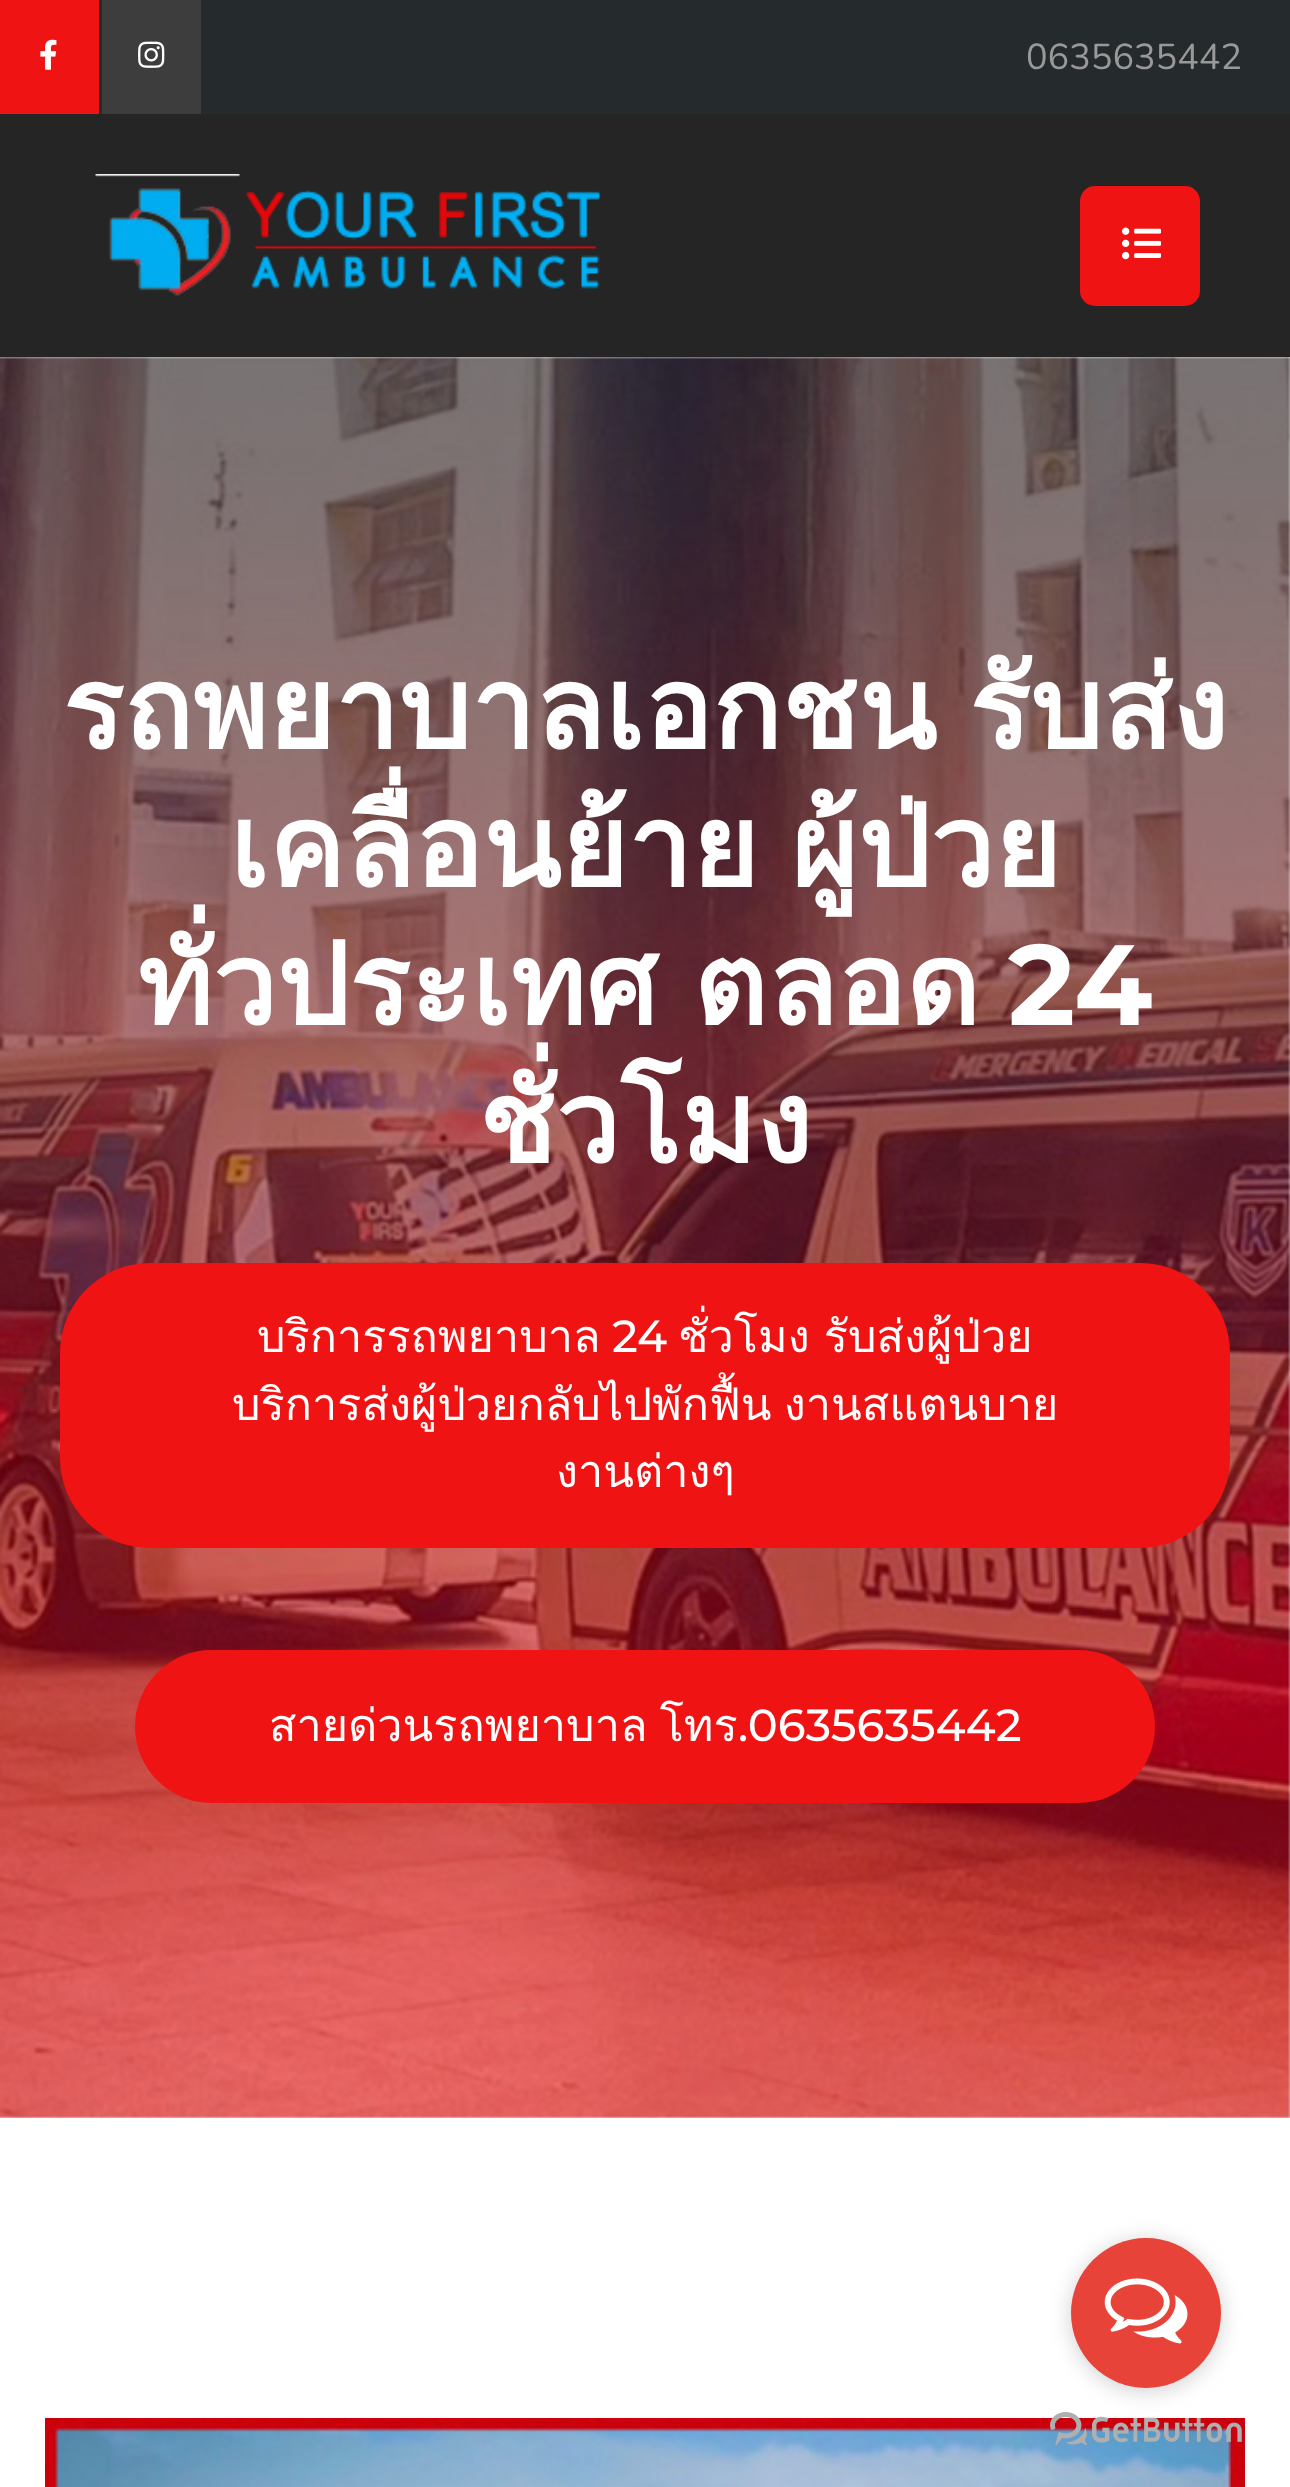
<svg xmlns="http://www.w3.org/2000/svg" width="1290" height="2487" viewBox="0 0 1290 2487">
  <rect width="100%" height="100%" fill="rgb(255,255,255)"/>
  <rect x="0" y="357" width="1290" height="1761" fill="rgb(242,242,242)"/>
  <rect x="99" y="0" width="1191" height="114" fill="rgb(37,42,44)"/>
  <rect x="0" y="0" width="99" height="114" fill="rgb(240,19,19)"/>
  <image x="40" y="39" width="17" height="31" href="pic1.png"/>
  <rect x="102" y="0" width="99" height="114" fill="rgb(61,61,61)"/>
  <image x="138" y="41" width="27" height="27" href="pic2.png"/>
  <text x="1026" y="69" font-family="Nunito" font-size="36" fill="rgb(153,153,153)">0635635442</text>
  <rect x="0" y="114" width="1290" height="243" fill="rgb(37,37,37)"/>
  <image x="95" y="174" width="505" height="122" href="pic3.png"/>
  <rect x="1080" y="186" width="120" height="120" rx="15" fill="rgb(240,19,19)"/>
  <image x="1122" y="227" width="39" height="33" href="pic4.png"/>
  <image x="0" y="357" width="1290" height="1761" href="pic5.png"/>
  <g font-family="Loma" font-size="114" font-weight="bold" fill="rgb(255,255,255)">
    <text x="62" y="749" word-spacing="-6">รถพยาบาลเอกชน รับส่ง</text>
    <text x="229" y="887" word-spacing="-6">เคลื่อนย้าย ผู้ป่วย</text>
    <text x="137" y="1025" word-spacing="-3">ทั่วประเทศ ตลอด</text>
  </g>
  <text x="1008" y="1025" font-family="Montserrat" font-size="114" font-weight="bold" fill="rgb(255,255,255)">24</text>
  <text x="478" y="1163" font-family="Loma" font-size="114" font-weight="bold" fill="rgb(255,255,255)">ชั่วโมง</text>
  <rect x="60" y="1263" width="1170" height="285" rx="90" fill="rgb(240,19,19)"/>
  <text x="257" y="1352" font-family="Loma" font-size="45" fill="rgb(255,255,255)">บริการรถพยาบาล</text>
  <text x="612" y="1352" font-family="Montserrat" font-size="45" font-weight="500" fill="rgb(255,255,255)">24</text>
  <g font-family="Loma" font-size="45" fill="rgb(255,255,255)">
    <text x="678" y="1352" word-spacing="-1">ชั่วโมง รับส่งผู้ป่วย</text>
    <text x="232" y="1420" word-spacing="-3">บริการส่งผู้ป่วยกลับไปพักฟื้น งานสแตนบาย</text>
    <text x="556" y="1487">งานต่างๆ</text>
  </g>
  <rect x="135" y="1650" width="1020" height="153" rx="76.5" fill="rgb(240,19,19)"/>
  <text x="269" y="1741" word-spacing="-3" font-family="Loma" font-size="45" fill="rgb(255,255,255)">สายด่วนรถพยาบาล โทร</text>
  <text x="738" y="1741" font-family="Montserrat" font-size="45" font-weight="500" fill="rgb(255,255,255)">.0635635442</text>
  <image x="45" y="2418" width="1200" height="69" href="pic6.png"/>
  <image x="1050" y="2412" width="192" height="33" href="pic8.png"/>
  <rect x="1071" y="2241" width="150" height="150" rx="75" fill="rgba(136,136,136,0.4)" filter="blur(10.5px)"/>
  <circle cx="1146" cy="2313" r="75" fill="rgb(231,67,57)"/>
  <image x="1104" y="2278" width="84" height="66" href="pic7.png"/>
</svg>
